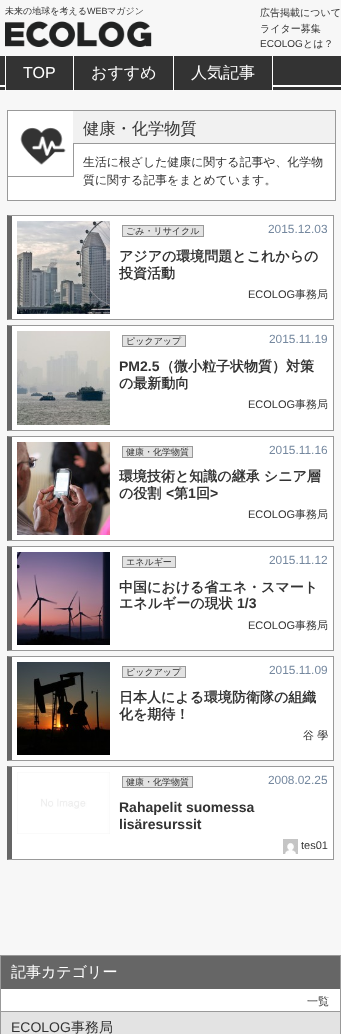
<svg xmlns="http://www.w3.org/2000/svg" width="341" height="1034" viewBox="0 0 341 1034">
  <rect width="100%" height="100%" fill="rgb(247,247,247)"/>
  <image x="0" y="56" width="341" height="34" href="pic1.png"/>
  <text x="5" y="14" font-family="WenQuanYi Zen Hei" font-size="9" font-weight="500" fill="rgb(51,51,51)">未来の地球を考える</text>
  <text x="87" y="14" font-family="Liberation Sans" font-size="9" fill="rgb(51,51,51)">WEB</text>
  <text x="107" y="14" font-family="WenQuanYi Zen Hei" font-size="9" font-weight="500" fill="rgb(51,51,51)">マガジン</text>
  <image x="5" y="21" width="147" height="26" href="pic2.png"/>
  <g font-family="WenQuanYi Zen Hei" font-size="10" font-weight="500" fill="rgb(51,51,51)">
    <text>
      <tspan x="260" y="16">広告掲載について</tspan>
      <tspan x="260" y="32">ライター募集</tspan>
    </text>
  </g>
  <text x="260" y="47" font-family="Liberation Sans" font-size="10" fill="rgb(51,51,51)">ECOLOG</text>
  <text x="303" y="47" font-family="WenQuanYi Zen Hei" font-size="10" font-weight="500" fill="rgb(51,51,51)">とは？</text>
  <rect x="5" y="56" width="1" height="35" fill="rgb(255,255,255)"/>
  <rect x="6" y="85" width="67" height="2" fill="rgb(51,51,51)"/>
  <text x="23" y="78" font-family="Liberation Sans" font-size="16" fill="rgb(255,255,255)">TOP</text>
  <rect x="73" y="56" width="1" height="35" fill="rgb(255,255,255)"/>
  <rect x="74" y="85" width="99" height="2" fill="rgb(51,51,51)"/>
  <text x="91" y="78" font-family="WenQuanYi Zen Hei" font-size="16" font-weight="500" fill="rgb(255,255,255)">おすすめ</text>
  <rect x="272" y="56" width="1" height="35" fill="rgb(255,255,255)"/>
  <rect x="173" y="56" width="1" height="35" fill="rgb(255,255,255)"/>
  <rect x="174" y="85" width="98" height="2" fill="rgb(51,51,51)"/>
  <text x="191" y="78" font-family="WenQuanYi Zen Hei" font-size="16" font-weight="500" fill="rgb(255,255,255)">人気記事</text>
  <rect x="7.5" y="110.5" width="328" height="90" fill="rgb(255,255,255)" stroke="rgb(153,153,153)"/>
  <rect x="73" y="144" width="1" height="33" fill="rgb(153,153,153)"/>
  <rect x="8" y="176" width="66" height="1" fill="rgb(153,153,153)"/>
  <image x="20" y="127" width="46" height="38" href="pic3.png"/>
  <rect x="73" y="111" width="262" height="32" fill="rgb(241,241,241)"/>
  <rect x="73" y="143" width="262" height="1" fill="rgb(153,153,153)"/>
  <text x="83" y="134" font-family="WenQuanYi Zen Hei" font-size="16.25" font-weight="500" fill="rgb(51,51,51)">健康・化学物質</text>
  <g font-family="WenQuanYi Zen Hei" font-size="11.9" font-weight="500" fill="rgb(51,51,51)">
    <text>
      <tspan x="83" y="166">生活に根ざした健康に関する記事や、化学物</tspan>
      <tspan x="83" y="184">質に関する記事をまとめています。</tspan>
    </text>
  </g>
  <rect x="12" y="216" width="321" height="103" fill="rgb(255,255,255)"/>
  <path d="M7 215H334L333 216H12Z" fill="rgb(153,153,153)"/>
  <rect x="333" y="215" width="1" height="105" fill="rgb(153,153,153)"/>
  <path d="M334 320H7L12 319H333Z" fill="rgb(153,153,153)"/>
  <path d="M7 320V215L12 216V319Z" fill="rgb(101,101,101)"/>
  <image x="17" y="221" width="93" height="93" href="pic4.png"/>
  <rect x="122.5" y="225.5" width="81" height="11" fill="rgb(227,227,227)" stroke="rgb(153,153,153)"/>
  <text x="126" y="234" font-family="WenQuanYi Zen Hei" font-size="9" font-weight="500" fill="rgb(51,51,51)">ごみ・リサイクル</text>
  <text x="268" y="233" font-family="Liberation Sans" font-size="11.9" fill="rgb(117,136,159)">2015.12.03</text>
  <g font-family="WenQuanYi Zen Hei" font-size="14" font-weight="bold" fill="rgb(51,51,51)">
    <text>
      <tspan x="119" y="261">アジアの環境問題とこれからの</tspan>
      <tspan x="119" y="278">投資活動</tspan>
    </text>
  </g>
  <text x="248" y="298" font-family="Liberation Sans" font-size="11" fill="rgb(51,51,51)">ECOLOG</text>
  <text x="295" y="298" font-family="WenQuanYi Zen Hei" font-size="11" font-weight="500" fill="rgb(51,51,51)">事務局</text>
  <rect x="12" y="326" width="321" height="104" fill="rgb(255,255,255)"/>
  <path d="M7 325H334L333 326H12Z" fill="rgb(153,153,153)"/>
  <rect x="333" y="325" width="1" height="106" fill="rgb(153,153,153)"/>
  <path d="M334 431H7L12 430H333Z" fill="rgb(153,153,153)"/>
  <path d="M7 431V325L12 326V430Z" fill="rgb(101,101,101)"/>
  <image x="17" y="331" width="93" height="94" href="pic5.png"/>
  <rect x="122.5" y="335.5" width="63" height="11" fill="rgb(227,227,227)" stroke="rgb(153,153,153)"/>
  <text x="126" y="344" font-family="WenQuanYi Zen Hei" font-size="9" font-weight="500" fill="rgb(51,51,51)">ピックアップ</text>
  <text x="269" y="343" font-family="Liberation Sans" font-size="11.9" fill="rgb(117,136,159)">2015.11.19</text>
  <text x="119" y="371" font-family="Liberation Sans" font-size="14" font-weight="bold" fill="rgb(51,51,51)">PM2.5</text>
  <g font-family="WenQuanYi Zen Hei" font-size="14" font-weight="bold" fill="rgb(51,51,51)">
    <text x="160" y="371">（微小粒子状物質）対策</text>
    <text x="119" y="388">の最新動向</text>
  </g>
  <text x="248" y="408" font-family="Liberation Sans" font-size="11" fill="rgb(51,51,51)">ECOLOG</text>
  <text x="295" y="408" font-family="WenQuanYi Zen Hei" font-size="11" font-weight="500" fill="rgb(51,51,51)">事務局</text>
  <rect x="12" y="437" width="321" height="103" fill="rgb(255,255,255)"/>
  <path d="M7 436H334L333 437H12Z" fill="rgb(153,153,153)"/>
  <rect x="333" y="436" width="1" height="105" fill="rgb(153,153,153)"/>
  <path d="M334 541H7L12 540H333Z" fill="rgb(153,153,153)"/>
  <path d="M7 541V436L12 437V540Z" fill="rgb(101,101,101)"/>
  <image x="17" y="442" width="93" height="93" href="pic6.png"/>
  <rect x="122.5" y="446.5" width="70" height="11" fill="rgb(227,227,227)" stroke="rgb(153,153,153)"/>
  <text x="126" y="455" font-family="WenQuanYi Zen Hei" font-size="9" font-weight="500" fill="rgb(51,51,51)">健康・化学物質</text>
  <text x="269" y="454" font-family="Liberation Sans" font-size="11.9" fill="rgb(117,136,159)">2015.11.16</text>
  <g font-family="WenQuanYi Zen Hei" font-size="14" font-weight="bold" fill="rgb(51,51,51)">
    <text>
      <tspan x="119" y="481">環境技術と知識の継承 シニア層</tspan>
      <tspan x="119" y="498">の役割</tspan>
    </text>
  </g>
  <text x="166" y="498" font-family="Liberation Sans" font-size="14" font-weight="bold" fill="rgb(51,51,51)">&lt;</text>
  <text x="174" y="498" font-family="WenQuanYi Zen Hei" font-size="14" font-weight="bold" fill="rgb(51,51,51)">第</text>
  <text x="188" y="498" font-family="Liberation Sans" font-size="14" font-weight="bold" fill="rgb(51,51,51)">1</text>
  <text x="196" y="498" font-family="WenQuanYi Zen Hei" font-size="14" font-weight="bold" fill="rgb(51,51,51)">回</text>
  <text x="210" y="498" font-family="Liberation Sans" font-size="14" font-weight="bold" fill="rgb(51,51,51)">&gt;</text>
  <text x="248" y="518" font-family="Liberation Sans" font-size="11" fill="rgb(51,51,51)">ECOLOG</text>
  <text x="295" y="518" font-family="WenQuanYi Zen Hei" font-size="11" font-weight="500" fill="rgb(51,51,51)">事務局</text>
  <rect x="12" y="547" width="321" height="103" fill="rgb(255,255,255)"/>
  <path d="M7 546H334L333 547H12Z" fill="rgb(153,153,153)"/>
  <rect x="333" y="546" width="1" height="105" fill="rgb(153,153,153)"/>
  <path d="M334 651H7L12 650H333Z" fill="rgb(153,153,153)"/>
  <path d="M7 651V546L12 547V650Z" fill="rgb(101,101,101)"/>
  <image x="17" y="552" width="93" height="93" href="pic7.png"/>
  <rect x="122.5" y="556.5" width="53" height="11" fill="rgb(227,227,227)" stroke="rgb(153,153,153)"/>
  <text x="126" y="565" font-family="WenQuanYi Zen Hei" font-size="9" font-weight="500" fill="rgb(51,51,51)">エネルギー</text>
  <text x="269" y="564" font-family="Liberation Sans" font-size="11.9" fill="rgb(117,136,159)">2015.11.12</text>
  <g font-family="WenQuanYi Zen Hei" font-size="14" font-weight="bold" fill="rgb(51,51,51)">
    <text>
      <tspan x="119" y="592">中国における省エネ・スマート</tspan>
      <tspan x="119" y="608">エネルギーの現状</tspan>
    </text>
  </g>
  <text x="237" y="608" font-family="Liberation Sans" font-size="14" font-weight="bold" fill="rgb(51,51,51)">1/3</text>
  <text x="248" y="629" font-family="Liberation Sans" font-size="11" fill="rgb(51,51,51)">ECOLOG</text>
  <text x="295" y="629" font-family="WenQuanYi Zen Hei" font-size="11" font-weight="500" fill="rgb(51,51,51)">事務局</text>
  <rect x="12" y="657" width="321" height="103" fill="rgb(255,255,255)"/>
  <path d="M7 656H334L333 657H12Z" fill="rgb(153,153,153)"/>
  <rect x="333" y="656" width="1" height="105" fill="rgb(153,153,153)"/>
  <path d="M334 761H7L12 760H333Z" fill="rgb(153,153,153)"/>
  <path d="M7 761V656L12 657V760Z" fill="rgb(101,101,101)"/>
  <image x="17" y="662" width="93" height="93" href="pic8.png"/>
  <rect x="122.5" y="666.5" width="63" height="11" fill="rgb(227,227,227)" stroke="rgb(153,153,153)"/>
  <text x="126" y="675" font-family="WenQuanYi Zen Hei" font-size="9" font-weight="500" fill="rgb(51,51,51)">ピックアップ</text>
  <text x="269" y="674" font-family="Liberation Sans" font-size="11.9" fill="rgb(117,136,159)">2015.11.09</text>
  <g font-family="WenQuanYi Zen Hei" font-size="14" font-weight="bold" fill="rgb(51,51,51)">
    <text>
      <tspan x="119" y="702">日本人による環境防衛隊の組織</tspan>
      <tspan x="119" y="719">化を期待！</tspan>
    </text>
  </g>
  <text x="303" y="739" font-family="WenQuanYi Zen Hei" font-size="11" font-weight="500" fill="rgb(51,51,51)">谷 學</text>
  <rect x="12" y="767" width="321" height="92" fill="rgb(255,255,255)"/>
  <path d="M7 766H334L333 767H12Z" fill="rgb(153,153,153)"/>
  <rect x="333" y="766" width="1" height="94" fill="rgb(153,153,153)"/>
  <path d="M334 860H7L12 859H333Z" fill="rgb(153,153,153)"/>
  <path d="M7 860V766L12 767V859Z" fill="rgb(101,101,101)"/>
  <image x="17" y="772" width="93" height="62" href="pic9.png"/>
  <rect x="122.5" y="776.5" width="70" height="11" fill="rgb(227,227,227)" stroke="rgb(153,153,153)"/>
  <text x="126" y="785" font-family="WenQuanYi Zen Hei" font-size="9" font-weight="500" fill="rgb(51,51,51)">健康・化学物質</text>
  <text x="268" y="784" font-family="Liberation Sans" font-size="11.9" fill="rgb(117,136,159)">2008.02.25</text>
  <g font-family="Liberation Sans" font-size="14" font-weight="bold" fill="rgb(51,51,51)">
    <text>
      <tspan x="119" y="812">Rahapelit suomessa</tspan>
      <tspan x="119" y="829">lisäresurssit</tspan>
    </text>
  </g>
  <image x="283" y="839" width="15" height="15" href="pic10.png"/>
  <text x="301" y="849" font-family="Liberation Sans" font-size="11" fill="rgb(51,51,51)">tes01</text>
  <rect x="0.5" y="955.5" width="340" height="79" fill="none" stroke="rgb(153,153,153)"/>
  <rect x="1" y="956" width="339" height="33" fill="rgb(102,102,102)"/>
  <text x="11" y="977" font-family="WenQuanYi Zen Hei" font-size="15" font-weight="500" fill="rgb(255,255,255)">記事カテゴリー</text>
  <rect x="1" y="989" width="339" height="22" fill="rgb(255,255,255)"/>
  <text x="307" y="1005" font-family="WenQuanYi Zen Hei" font-size="11" font-weight="500" fill="rgb(51,51,51)">一覧</text>
  <rect x="1" y="1012" width="339" height="22" fill="rgb(227,227,227)"/>
  <rect x="1" y="1011" width="339" height="1" fill="rgb(153,153,153)"/>
  <text x="11" y="1032" font-family="Liberation Sans" font-size="14" fill="rgb(51,51,51)">ECOLOG</text>
  <text x="71" y="1032" font-family="WenQuanYi Zen Hei" font-size="14" font-weight="500" fill="rgb(51,51,51)">事務局</text>
</svg>
